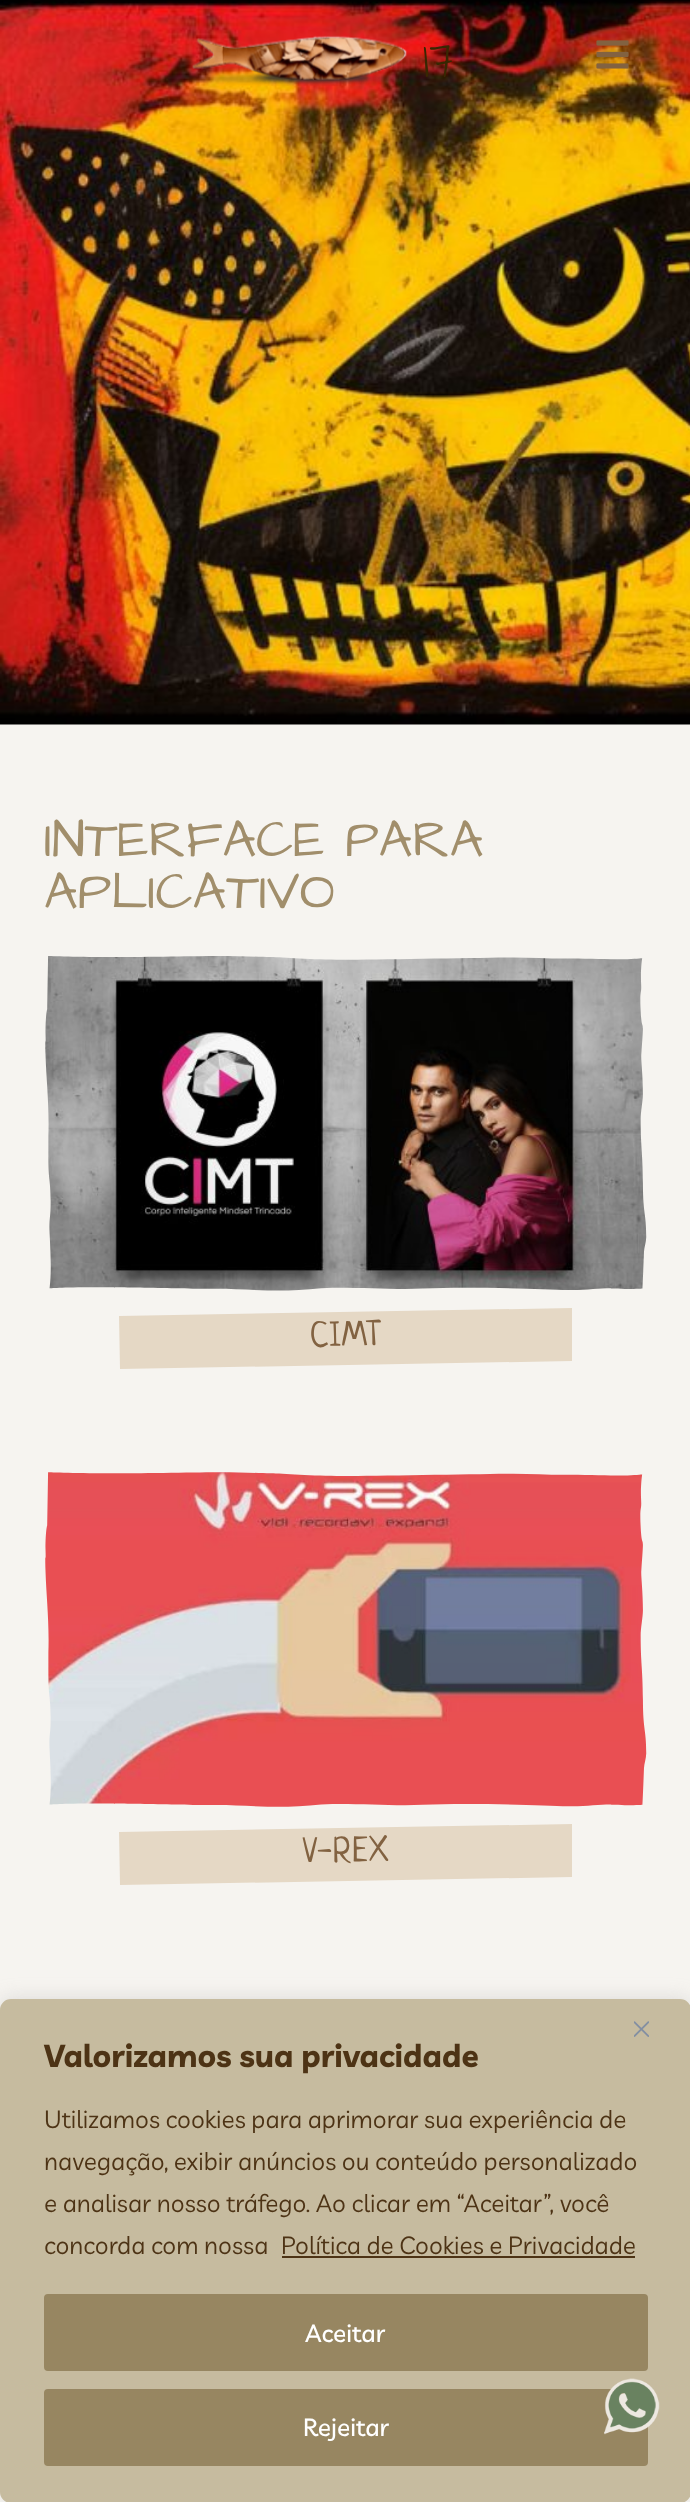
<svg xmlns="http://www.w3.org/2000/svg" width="690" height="2502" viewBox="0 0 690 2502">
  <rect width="100%" height="100%" fill="rgb(246,244,240)"/>
  <image x="0" y="0" width="690" height="725" href="pic3.png"/>
  <image x="192" y="35" width="215" height="51" href="pic1.png"/>
  <text x="423" y="77" font-family="Waiting for the Sunrise" font-size="56" font-weight="300" fill="rgb(56,39,2)">17</text>
  <image x="596" y="40" width="33" height="29" href="pic2.png"/>
  <g font-family="Architects Daughter" font-size="52.5" fill="rgb(161,142,107)">
    <text>
      <tspan x="44" y="856">INTERFACE PARA</tspan>
      <tspan x="44" y="908">APLICATIVO</tspan>
    </text>
  </g>
  <image x="45" y="956" width="602" height="335" href="pic4.png"/>
  <path d="M119 1316L572 1308V1361L120 1369Z" fill="rgb(229,216,197)"/>
  <text x="310" y="1346" transform="rotate(-1 310 1346)" font-family="Neucha" font-size="35" letter-spacing="1" fill="rgb(130,98,65)">CIMT</text>
  <image x="45" y="1472" width="602" height="335" href="pic5.png"/>
  <path d="M119 1832L572 1824V1877L120 1885Z" fill="rgb(229,216,197)"/>
  <text x="303" y="1862" transform="rotate(-1 303 1862)" font-family="Neucha" font-size="35" letter-spacing="1" fill="rgb(130,98,65)">V-REX</text>
  <rect x="0" y="1997" width="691" height="504" rx="11" fill="rgba(172,171,171,0.3)" filter="blur(9px)"/>
  <rect x="1" y="2000" width="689" height="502" rx="10" fill="rgb(198,187,159)" stroke="rgb(198,187,159)" stroke-width="2"/>
  <image x="634" y="2021" width="15" height="16" href="pic6.png"/>
  <text x="44" y="2067" font-family="Livvic" font-size="31.5" font-weight="bold" fill="rgb(77,51,21)">Valorizamos sua privacidade</text>
  <g font-family="Livvic" font-size="24.5" fill="rgb(77,51,21)">
    <text>
      <tspan x="44" y="2128">Utilizamos cookies para aprimorar sua experiência de</tspan>
      <tspan x="44" y="2170">navegação, exibir anúncios ou conteúdo personalizado</tspan>
      <tspan x="44" y="2212">e analisar nosso tráfego. Ao clicar em “Aceitar”, você</tspan>
      <tspan x="44" y="2254">concorda com nossa</tspan>
    </text>
    <text x="281" y="2254">Política de Cookies e Privacidade</text>
  </g>
  <rect x="282" y="2256" width="353" height="2" fill="rgb(77,51,21)"/>
  <rect x="46" y="2296" width="600" height="73" rx="2" fill="rgb(151,134,97)" stroke="rgb(151,134,97)" stroke-width="4"/>
  <text x="305" y="2342" font-family="Livvic" font-size="24.5" font-weight="500" fill="rgb(255,255,255)">Aceitar</text>
  <rect x="46" y="2391" width="600" height="73" rx="2" fill="rgb(151,134,97)" stroke="rgb(151,134,97)" stroke-width="4"/>
  <text x="303" y="2436" font-family="Livvic" font-size="24.5" font-weight="500" fill="rgb(255,255,255)">Rejeitar</text>
  <image x="604" y="2378" width="56" height="57" href="pic7.png"/>
</svg>
